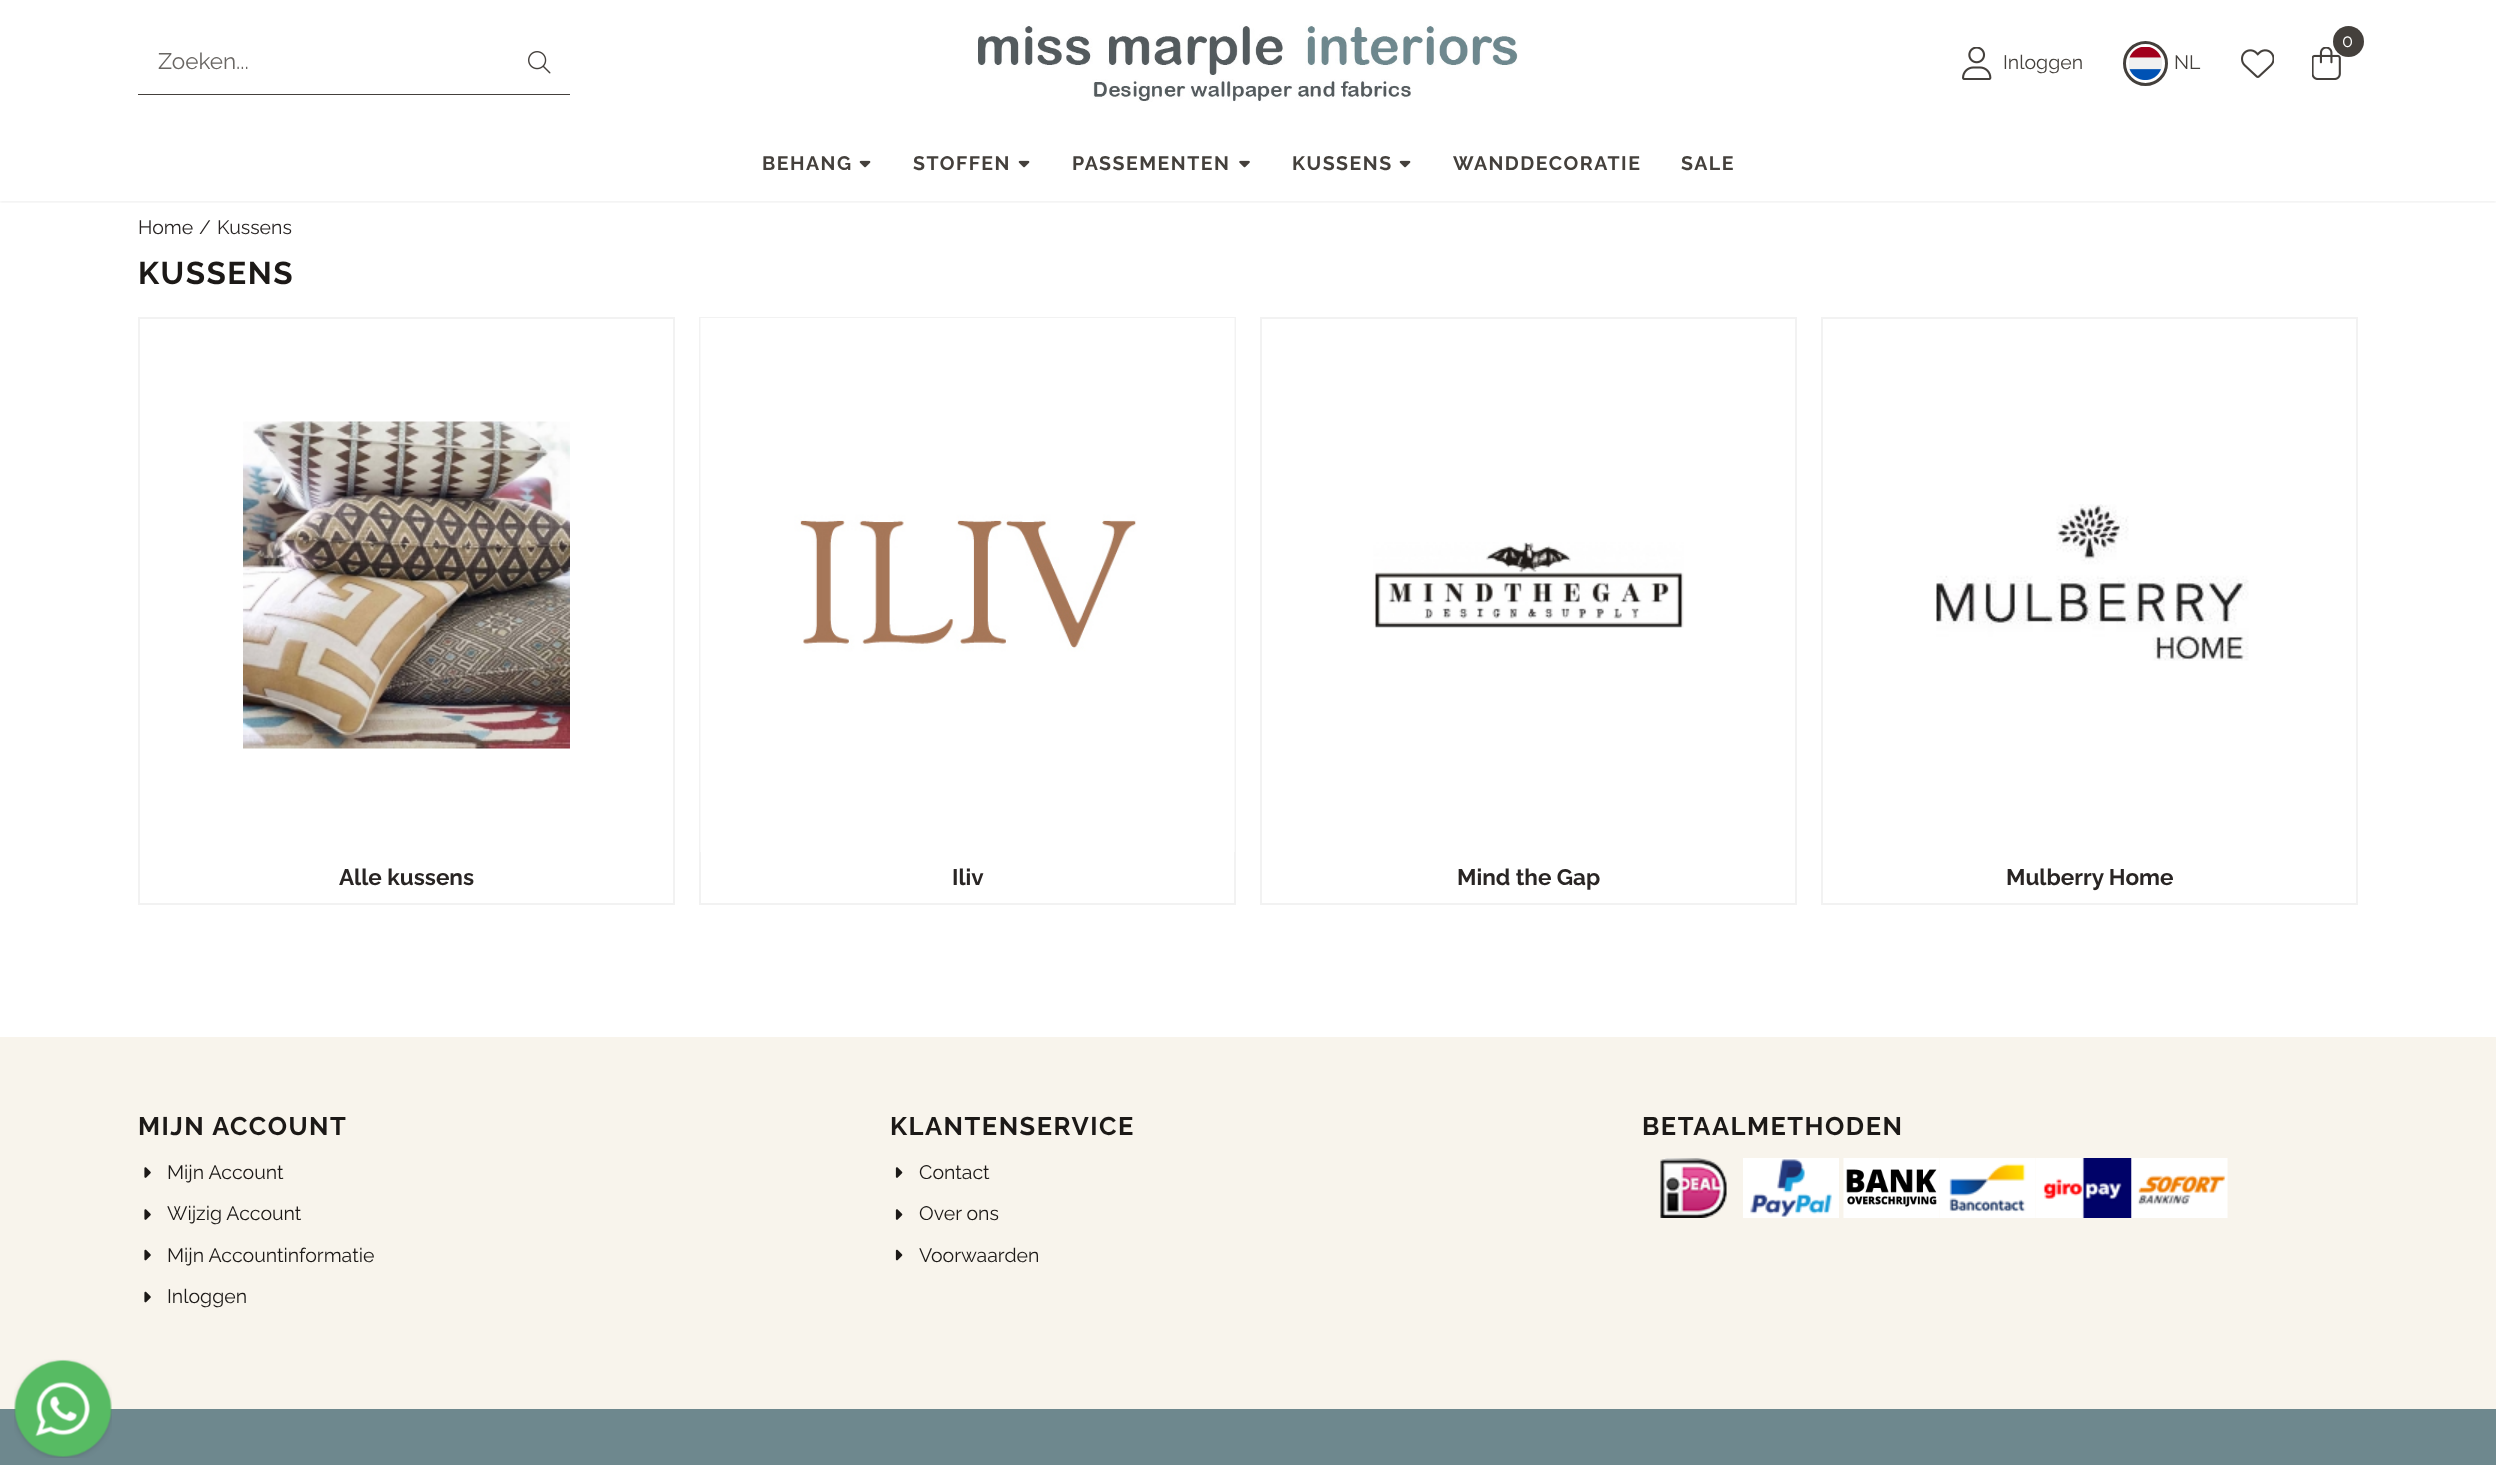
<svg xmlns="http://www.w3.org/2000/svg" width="2496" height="1465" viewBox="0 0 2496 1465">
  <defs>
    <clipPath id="clip1"><rect x="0" y="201" width="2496" height="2"/></clipPath>
  </defs>
  <rect width="100%" height="100%" fill="rgb(255,255,255)"/>
  <rect x="138" y="94" width="432" height="1" fill="rgb(68,64,60)"/>
  <text x="158" y="69" font-family="Raleway" font-size="22.5" font-weight="100" fill="rgb(105,102,99)">Zoeken...</text>
  <image x="528" y="51" width="23" height="23" href="pic1.png"/>
  <image x="978" y="25" width="540" height="77" href="pic2.png"/>
  <image x="2312" y="47" width="29" height="33" href="pic3.png"/>
  <circle cx="2348.5" cy="41.5" r="15.5" fill="rgb(68,64,60)"/>
  <text x="2342" y="47" font-family="Raleway" font-size="18" font-weight="100" fill="rgb(255,255,255)">0</text>
  <image x="1962" y="47" width="30" height="33" href="pic4.png"/>
  <text x="2003" y="69" font-family="Raleway" font-size="19.5" font-weight="100" fill="rgb(68,64,60)">Inloggen</text>
  <circle cx="2145.5" cy="63.5" r="21" fill="none" stroke="rgb(68,64,60)" stroke-width="3"/>
  <image x="2129" y="47" width="33" height="33" href="pic5.png"/>
  <text x="2174" y="69" font-family="Raleway" font-size="19.5" font-weight="100" fill="rgb(68,64,60)">NL</text>
  <image x="2241" y="49" width="33" height="29" href="pic6.png"/>
  <g clip-path="url(#clip1)">
    <rect x="0" y="128" width="2496" height="75" fill="rgba(0,0,0,0.05)" filter="blur(1.5px)"/>
  </g>
  <text x="762" y="170" font-family="'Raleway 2'" font-size="19.5" font-weight="100" letter-spacing="1.5" fill="rgb(68,64,60)">BEHANG</text>
  <image x="859" y="160" width="12" height="8" href="pic7.png"/>
  <text x="913" y="170" font-family="'Raleway 2'" font-size="19.5" font-weight="100" letter-spacing="1.5" fill="rgb(68,64,60)">STOFFEN</text>
  <image x="1018" y="160" width="12" height="8" href="pic7.png"/>
  <text x="1072" y="170" font-family="'Raleway 2'" font-size="19.5" font-weight="100" letter-spacing="1.5" fill="rgb(68,64,60)">PASSEMENTEN</text>
  <image x="1239" y="160" width="11" height="8" href="pic8.png"/>
  <text x="1292" y="170" font-family="'Raleway 2'" font-size="19.5" font-weight="100" letter-spacing="1.5" fill="rgb(68,64,60)">KUSSENS</text>
  <image x="1399" y="160" width="12" height="8" href="pic7.png"/>
  <g font-family="'Raleway 2'" font-size="19.5" font-weight="100" letter-spacing="1.5" fill="rgb(68,64,60)">
    <text x="1453" y="170">WANDDECORATIE</text>
    <text x="1681" y="170">SALE</text>
  </g>
  <g font-family="Raleway" font-size="19.5" font-weight="100" fill="rgb(41,37,36)">
    <text x="138" y="234">Home</text>
    <text x="199" y="234">/</text>
    <text x="217" y="234">Kussens</text>
  </g>
  <text x="138" y="284" font-family="'Raleway 2'" font-size="31.5" font-weight="100" letter-spacing="1.5" fill="rgb(28,25,23)">KUSSENS</text>
  <rect x="139" y="318" width="535" height="586" fill="none" stroke="rgb(242,242,242)" stroke-width="2"/>
  <image x="243" y="421" width="327" height="328" href="pic9.png"/>
  <text x="339" y="885" font-family="'Raleway 2'" font-size="22.5" font-weight="100" fill="rgb(41,37,36)">Alle kussens</text>
  <rect x="700" y="318" width="535" height="586" fill="none" stroke="rgb(242,242,242)" stroke-width="2"/>
  <image x="700" y="318" width="535" height="534" href="pic10.png"/>
  <text x="952" y="885" font-family="'Raleway 2'" font-size="22.5" font-weight="100" fill="rgb(41,37,36)">Iliv</text>
  <rect x="1261" y="318" width="535" height="586" fill="none" stroke="rgb(242,242,242)" stroke-width="2"/>
  <image x="1373" y="542" width="311" height="86" href="pic11.png"/>
  <text x="1457" y="885" font-family="'Raleway 2'" font-size="22.5" font-weight="100" fill="rgb(41,37,36)">Mind the Gap</text>
  <rect x="1822" y="318" width="535" height="586" fill="none" stroke="rgb(242,242,242)" stroke-width="2"/>
  <image x="1936" y="504" width="313" height="157" href="pic12.png"/>
  <text x="2006" y="885" font-family="'Raleway 2'" font-size="22.5" font-weight="100" fill="rgb(41,37,36)">Mulberry Home</text>
  <rect x="0" y="1037" width="2496" height="372" fill="rgb(248,244,236)"/>
  <text x="138" y="1135" font-family="'Raleway 2'" font-size="25.5" font-weight="100" letter-spacing="1.5" fill="rgb(28,25,23)">MIJN ACCOUNT</text>
  <image x="144" y="1167" width="7" height="11" href="pic13.png"/>
  <text x="167" y="1179" font-family="Raleway" font-size="19.5" font-weight="100" fill="rgb(28,25,23)">Mijn Account</text>
  <image x="144" y="1209" width="7" height="11" href="pic13.png"/>
  <text x="167" y="1220" font-family="Raleway" font-size="19.5" font-weight="100" fill="rgb(28,25,23)">Wijzig Account</text>
  <image x="144" y="1249" width="7" height="12" href="pic14.png"/>
  <text x="167" y="1262" font-family="Raleway" font-size="19.5" font-weight="100" fill="rgb(28,25,23)">Mijn Accountinformatie</text>
  <image x="144" y="1291" width="7" height="12" href="pic14.png"/>
  <text x="167" y="1303" font-family="Raleway" font-size="19.5" font-weight="100" fill="rgb(28,25,23)">Inloggen</text>
  <text x="890" y="1135" font-family="'Raleway 2'" font-size="25.5" font-weight="100" letter-spacing="1.5" fill="rgb(28,25,23)">KLANTENSERVICE</text>
  <image x="895" y="1167" width="8" height="11" href="pic15.png"/>
  <text x="919" y="1179" font-family="Raleway" font-size="19.5" font-weight="100" fill="rgb(28,25,23)">Contact</text>
  <image x="895" y="1209" width="8" height="11" href="pic15.png"/>
  <text x="919" y="1220" font-family="Raleway" font-size="19.5" font-weight="100" fill="rgb(28,25,23)">Over ons</text>
  <image x="895" y="1249" width="8" height="12" href="pic16.png"/>
  <text x="919" y="1262" font-family="Raleway" font-size="19.5" font-weight="100" fill="rgb(28,25,23)">Voorwaarden</text>
  <text x="1642" y="1135" font-family="'Raleway 2'" font-size="25.5" font-weight="100" letter-spacing="1.5" fill="rgb(28,25,23)">BETAALMETHODEN</text>
  <image x="1660" y="1158" width="67" height="60" href="pic17.png"/>
  <image x="1743" y="1158" width="96" height="60" href="pic18.png"/>
  <image x="1843" y="1158" width="97" height="60" href="pic19.png"/>
  <image x="1939" y="1158" width="97" height="60" href="pic20.png"/>
  <image x="2035" y="1158" width="97" height="60" href="pic21.png"/>
  <image x="2131" y="1158" width="97" height="60" href="pic22.png"/>
  <rect x="0" y="1409" width="2496" height="56" fill="rgb(110,136,142)"/>
  <image x="14" y="1359" width="98" height="99" href="pic23.png"/>
</svg>
